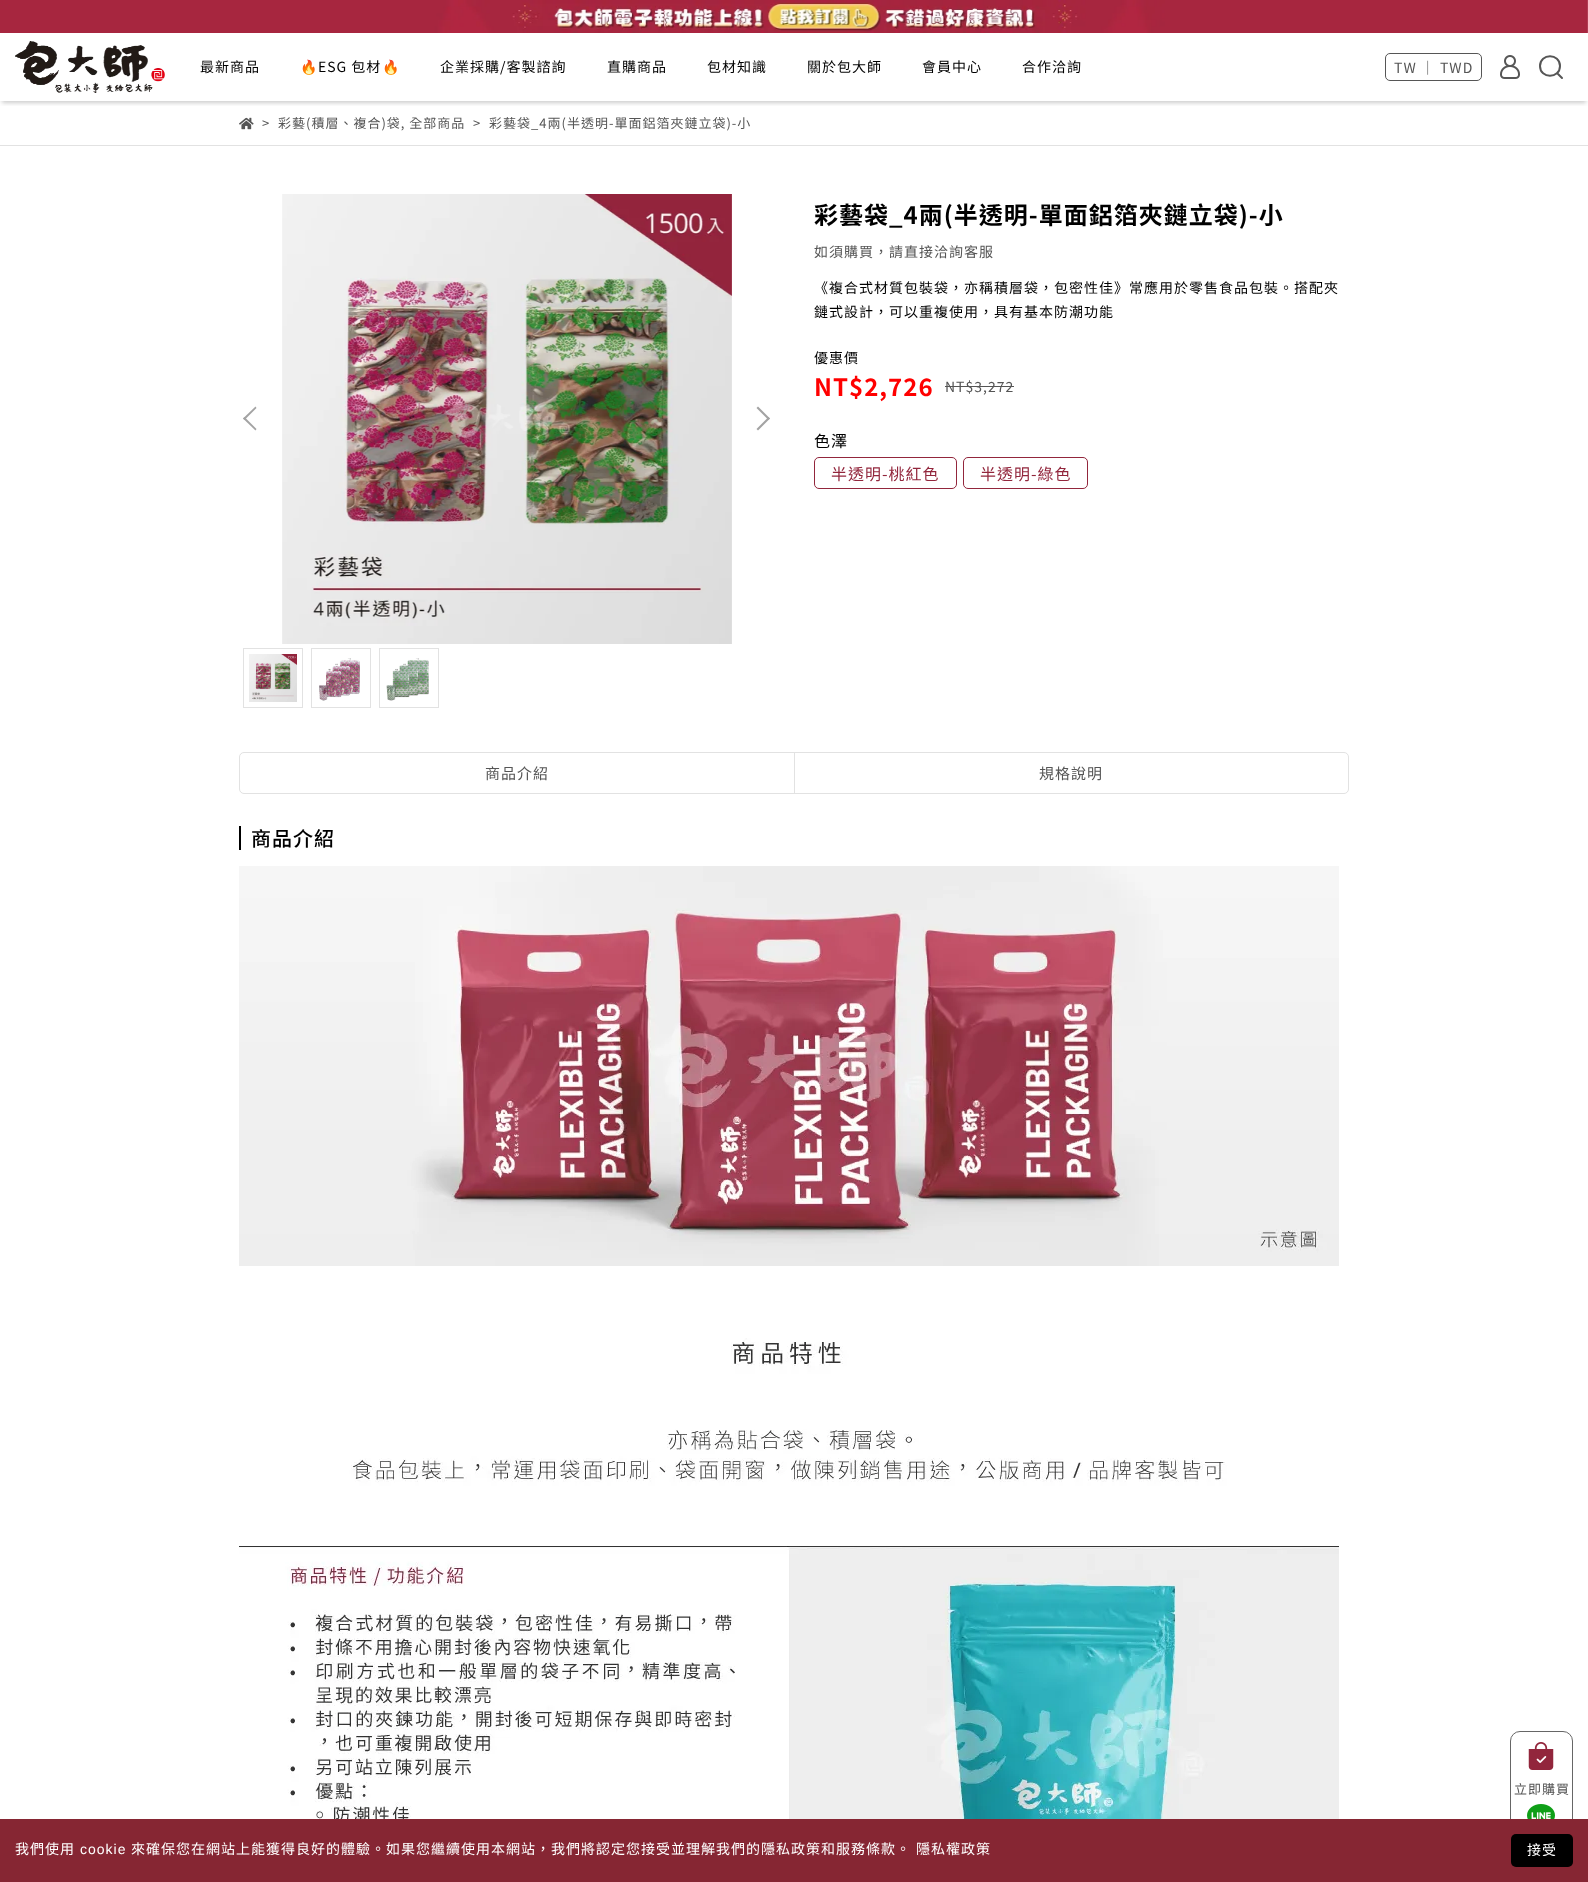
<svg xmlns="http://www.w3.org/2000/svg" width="1588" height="1882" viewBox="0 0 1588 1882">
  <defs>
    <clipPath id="clip1"><rect x="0" y="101" width="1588" height="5"/></clipPath>
  </defs>
  <rect width="100%" height="100%" fill="rgb(255,255,255)"/>
  <g clip-path="url(#clip1)">
    <rect x="2" y="39" width="1584" height="64" fill="rgba(0,0,0,0.2)" filter="blur(2px)"/>
  </g>
  <image x="0" y="0" width="1588" height="33" href="pic1.png"/>
  <image x="15" y="41" width="150" height="52" href="pic2.png"/>
  <text x="200" y="72" font-family="Noto Sans TC" font-size="14" letter-spacing="1" fill="rgb(0,0,0)">最新商品</text>
  <text x="300" y="72" font-family="Noto Color Emoji" font-size="14" letter-spacing="1" fill="rgb(0,0,0)">🔥</text>
  <text x="318" y="72" font-family="Noto Sans TC" font-size="14" letter-spacing="1" fill="rgb(0,0,0)">ESG 包材</text>
  <text x="382" y="72" font-family="Noto Color Emoji" font-size="14" letter-spacing="1" fill="rgb(0,0,0)">🔥</text>
  <g font-family="Noto Sans TC" font-size="14" letter-spacing="1" fill="rgb(0,0,0)">
    <text x="440" y="72">企業採購/客製諮詢</text>
    <text x="607" y="72">直購商品</text>
    <text x="707" y="72">包材知識</text>
    <text x="807" y="72">關於包大師</text>
    <text x="922" y="72">會員中心</text>
    <text x="1022" y="72">合作洽詢</text>
  </g>
  <rect x="1385.5" y="53.5" width="96" height="27" rx="4.5" fill="none" stroke="rgb(86,86,86)"/>
  <text x="1394" y="73" font-family="Noto Sans TC" font-size="14" letter-spacing="1" fill="rgb(85,85,85)">TW ｜ TWD</text>
  <image x="1500" y="55" width="20" height="24" href="pic3.png"/>
  <path d="M1560 66C1560 79 1540 79 1540 66C1540 53 1560 53 1560 66ZM1558 74L1562 78" fill="none" stroke="rgb(86,86,86)" stroke-width="2" stroke-linecap="round" stroke-linejoin="round"/>
  <rect x="0" y="145" width="1588" height="1" fill="rgb(226,226,226)"/>
  <image x="239" y="117" width="15" height="13" href="pic4.png"/>
  <g font-family="Noto Sans TC" font-size="13" letter-spacing="1" fill="rgb(85,85,85)">
    <text x="262" y="128">&gt;</text>
    <text x="278" y="128">彩藝(積層、複合)袋, 全部商品</text>
    <text x="473" y="128">&gt;</text>
    <text x="489" y="128">彩藝袋_4兩(半透明-單面鋁箔夾鏈立袋)-小</text>
  </g>
  <path d="M255.5 430.5L243 418.5L244.5 417L256.5 429Z" fill="rgb(163,163,163)"/>
  <path d="M244.5 420L243 418.5L255.5 406.5L256.5 408Z" fill="rgb(163,163,163)"/>
  <image x="282" y="194" width="450" height="450" href="pic5.png"/>
  <path d="M758 406.5L770 418.5L768.5 420L756.5 408Z" fill="rgb(163,163,163)"/>
  <path d="M768.5 417L770 418.5L758 430.5L756.5 429Z" fill="rgb(163,163,163)"/>
  <rect x="243.5" y="648.5" width="59" height="59" fill="none" stroke="rgb(226,226,226)"/>
  <image x="249" y="654" width="48" height="48" href="pic6.png"/>
  <rect x="311.5" y="648.5" width="59" height="59" fill="none" stroke="rgb(226,226,226)"/>
  <image x="319" y="658" width="41" height="43" href="pic7.png"/>
  <rect x="379.5" y="648.5" width="59" height="59" fill="none" stroke="rgb(226,226,226)"/>
  <image x="386" y="658" width="43" height="43" href="pic8.png"/>
  <text x="814" y="224" font-family="Noto Sans TC" font-size="24" font-weight="bold" letter-spacing="1" fill="rgb(0,0,0)">彩藝袋_4兩(半透明-單面鋁箔夾鏈立袋)-小</text>
  <text x="814" y="257" font-family="Noto Sans TC" font-size="14" letter-spacing="1" fill="rgb(85,85,85)">如須購買，請直接洽詢客服</text>
  <g font-family="Noto Sans TC" font-size="14" letter-spacing="1" fill="rgb(0,0,0)">
    <text>
      <tspan x="814" y="293">《複合式材質包裝袋，亦稱積層袋，包密性佳》常應用於零售食品包裝。搭配夾</tspan>
      <tspan x="814" y="317">鏈式設計，可以重複使用，具有基本防潮功能</tspan>
    </text>
    <text x="814" y="363">優惠價</text>
  </g>
  <text x="814" y="396" font-family="Noto Sans TC" font-size="24" font-weight="bold" letter-spacing="1" fill="rgb(255,0,0)">NT$2,726</text>
  <text x="945" y="392" font-family="Noto Sans TC" font-size="14" letter-spacing="1" fill="rgb(85,85,85)">NT$3,272</text>
  <rect x="945" y="386" width="69" height="1" fill="rgb(85,85,85)"/>
  <text x="814" y="447" font-family="Noto Sans TC" font-size="16" letter-spacing="1" fill="rgb(0,0,0)">色澤</text>
  <rect x="814.5" y="457.5" width="142" height="31" rx="4.5" fill="none" stroke="rgb(146,38,60)"/>
  <text x="831" y="480" font-family="Noto Sans TC" font-size="16" letter-spacing="1" fill="rgb(146,38,60)">半透明-桃紅色</text>
  <rect x="963.5" y="457.5" width="124" height="31" rx="4.5" fill="none" stroke="rgb(146,38,60)"/>
  <text x="980" y="480" font-family="Noto Sans TC" font-size="16" letter-spacing="1" fill="rgb(146,38,60)">半透明-綠色</text>
  <rect x="239.5" y="752.5" width="1109" height="41" rx="4.5" fill="none" stroke="rgb(226,226,226)"/>
  <text x="485" y="779" font-family="Noto Sans TC" font-size="15" letter-spacing="1" fill="rgb(85,85,85)">商品介紹</text>
  <rect x="794" y="753" width="1" height="40" fill="rgb(226,226,226)"/>
  <text x="1039" y="779" font-family="Noto Sans TC" font-size="15" letter-spacing="1" fill="rgb(85,85,85)">規格說明</text>
  <rect x="239" y="826" width="2" height="24" fill="rgb(0,0,0)"/>
  <text x="251" y="846" font-family="Noto Sans TC" font-size="20" font-weight="500" letter-spacing="1" fill="rgb(0,0,0)">商品介紹</text>
  <image x="239" y="866" width="1100" height="400" href="pic9.png"/>
  <image x="239" y="1338" width="1100" height="481" href="pic10.png"/>
  <rect x="1510.5" y="1731.5" width="62" height="135" rx="9.5" fill="none" stroke="rgb(102,102,102)"/>
  <image x="1528" y="1742" width="26" height="28" href="pic11.png"/>
  <text x="1514" y="1794" font-family="Noto Sans TC" font-size="13" letter-spacing="1" fill="rgb(85,85,85)">立即購買</text>
  <image x="1527" y="1804" width="28" height="15" href="pic12.png"/>
  <rect x="0" y="1819" width="1588" height="63" fill="rgb(134,38,51)"/>
  <text x="15" y="1854" font-family="Noto Sans CJK TC" font-size="14" letter-spacing="1" fill="rgb(255,255,255)">我們使用</text>
  <text x="80" y="1854" font-family="Liberation Sans" font-size="14" letter-spacing="1" fill="rgb(255,255,255)">cookie</text>
  <g font-family="Noto Sans CJK TC" font-size="14" letter-spacing="1" fill="rgb(255,255,255)">
    <text x="131" y="1854">來確保您在網站上能獲得良好的體驗。如果您繼續使用本網站，我們將認定您接受並理解我們的隱私政策和服務條款。</text>
    <text x="916" y="1854">隱私權政策</text>
  </g>
  <rect x="1511" y="1834" width="62" height="33" rx="5" fill="rgb(0,0,0)"/>
  <text x="1527" y="1855" font-family="Noto Sans CJK TC" font-size="14" letter-spacing="1" fill="rgb(255,255,255)">接受</text>
</svg>
